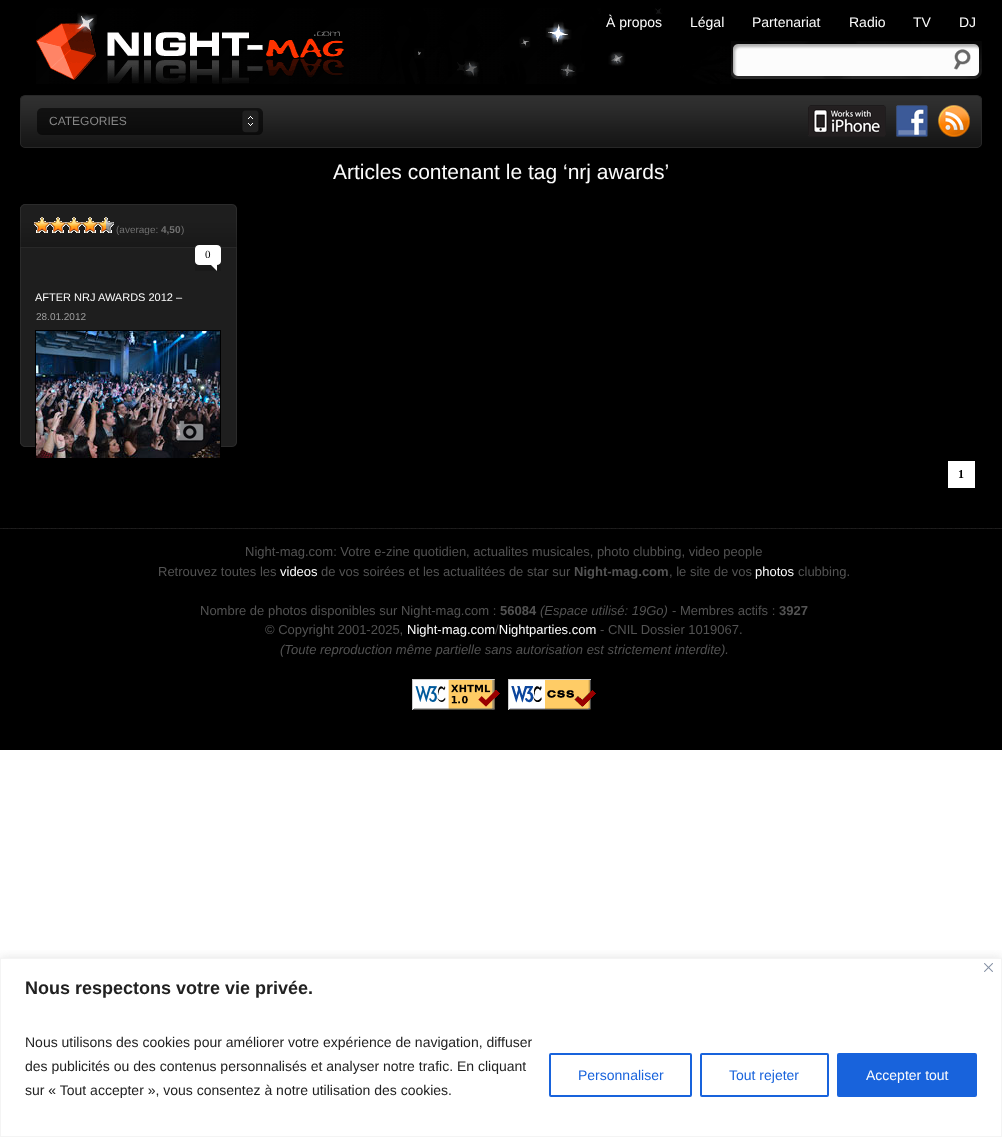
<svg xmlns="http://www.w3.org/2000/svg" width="1002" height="1137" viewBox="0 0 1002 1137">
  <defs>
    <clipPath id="clip1"><rect x="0" y="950" width="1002" height="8"/></clipPath>
  </defs>
  <rect width="100%" height="100%" fill="rgb(255,255,255)"/>
  <rect x="0" y="0" width="1002" height="528" fill="rgb(0,0,0)"/>
  <image x="36" y="8" width="695" height="76" href="pic1.png"/>
  <g font-family="Liberation Sans" font-size="14" fill="rgb(252,252,252)">
    <text x="606" y="27">À propos</text>
    <text x="690" y="27">Légal</text>
    <text x="752" y="27">Partenariat</text>
    <text x="849" y="27">Radio</text>
    <text x="913" y="27">TV</text>
    <text x="959" y="27">DJ</text>
  </g>
  <image x="731" y="41" width="251" height="38" href="pic2.png"/>
  <image x="953" y="49" width="18" height="21" href="pic3.png"/>
  <image x="20" y="96" width="962" height="52" href="pic4.png"/>
  <rect x="20.5" y="95.5" width="961" height="52" rx="4.5" fill="none" stroke="rgb(39,39,39)"/>
  <image x="37" y="108" width="226" height="27" href="pic5.png"/>
  <text x="49" y="125" font-family="Liberation Sans" font-size="12" fill="rgb(135,135,135)">CATEGORIES</text>
  <image x="808" y="105" width="78" height="32" href="pic6.png"/>
  <image x="896" y="105" width="32" height="32" href="pic7.png"/>
  <image x="938" y="105" width="32" height="32" href="pic8.png"/>
  <text x="333" y="179" font-family="Liberation Sans" font-size="21" fill="rgb(252,252,252)">Articles contenant le tag ‘nrj awards’</text>
  <image x="20" y="204" width="217" height="243" href="pic9.png"/>
  <image x="34" y="217" width="16" height="16" href="pic10.png"/>
  <image x="50" y="217" width="16" height="16" href="pic10.png"/>
  <image x="66" y="217" width="16" height="16" href="pic10.png"/>
  <image x="82" y="217" width="16" height="16" href="pic10.png"/>
  <image x="98" y="217" width="16" height="16" href="pic11.png"/>
  <text x="116" y="233" font-family="Liberation Sans" font-size="10" fill="rgb(113,113,113)">(average:</text>
  <text x="161" y="233" font-family="Liberation Sans" font-size="10" font-weight="bold" fill="rgb(113,113,113)">4,50</text>
  <text x="181" y="233" font-family="Liberation Sans" font-size="10" fill="rgb(113,113,113)">)</text>
  <image x="195" y="245" width="26" height="26" href="pic12.png"/>
  <text x="205" y="258" font-family="Liberation Serif" font-size="11" fill="rgb(0,0,0)">0</text>
  <text x="35" y="301" font-family="Liberation Sans" font-size="11" fill="rgb(252,252,252)">AFTER NRJ AWARDS 2012 –</text>
  <text x="36" y="320" font-family="Liberation Sans" font-size="10" fill="rgb(157,157,157)">28.01.2012</text>
  <rect x="35.5" y="330.5" width="185" height="128" fill="none" stroke="rgb(0,0,0)"/>
  <image x="36" y="331" width="184" height="127" href="pic13.png"/>
  <image x="168" y="409" width="43" height="43" href="pic14.png"/>
  <rect x="948" y="461" width="27" height="27" fill="rgb(255,255,255)"/>
  <text x="958" y="478" font-family="Liberation Serif" font-size="12" font-weight="bold" fill="rgb(0,0,0)">1</text>
  <rect x="0" y="529" width="1002" height="221" fill="rgb(0,0,0)"/>
  <image x="0" y="528" width="1002" height="1" href="pic15.png"/>
  <g font-family="Liberation Sans" font-size="13" fill="rgb(83,83,83)">
    <text x="245" y="556">Night-mag.com: Votre e-zine quotidien, actualites musicales, photo clubbing, video people</text>
    <text x="158" y="576">Retrouvez toutes les</text>
  </g>
  <text x="280" y="576" font-family="Liberation Sans" font-size="13" fill="rgb(252,252,252)">videos</text>
  <text x="321" y="576" font-family="Liberation Sans" font-size="13" fill="rgb(83,83,83)">de vos soirées et les actualitées de star sur</text>
  <text x="574" y="576" font-family="Liberation Sans" font-size="13" font-weight="bold" fill="rgb(83,83,83)">Night-mag.com</text>
  <text x="669" y="576" font-family="Liberation Sans" font-size="13" fill="rgb(83,83,83)">, le site de vos</text>
  <text x="755" y="576" font-family="Liberation Sans" font-size="13" fill="rgb(252,252,252)">photos</text>
  <g font-family="Liberation Sans" font-size="13" fill="rgb(83,83,83)">
    <text x="798" y="576">clubbing.</text>
    <text x="200" y="615">Nombre de photos disponibles sur Night-mag.com :</text>
  </g>
  <text x="500" y="615" font-family="Liberation Sans" font-size="13" font-weight="bold" fill="rgb(83,83,83)">56084</text>
  <text x="540" y="615" font-family="Liberation Sans" font-size="13" font-style="italic" fill="rgb(83,83,83)">(Espace utilisé: 19Go)</text>
  <text x="672" y="615" font-family="Liberation Sans" font-size="13" fill="rgb(83,83,83)">- Membres actifs :</text>
  <text x="779" y="615" font-family="Liberation Sans" font-size="13" font-weight="bold" fill="rgb(83,83,83)">3927</text>
  <text x="265" y="634" font-family="Liberation Sans" font-size="13" fill="rgb(83,83,83)">© Copyright 2001-2025,</text>
  <text x="407" y="634" font-family="Liberation Sans" font-size="13" fill="rgb(252,252,252)">Night-mag.com Nightparties.com</text>
  <g font-family="Liberation Sans" font-size="13" fill="rgb(83,83,83)">
    <text x="495" y="634">/</text>
    <text x="600" y="634">- CNIL Dossier 1019067.</text>
  </g>
  <text x="280" y="654" font-family="Liberation Sans" font-size="13" font-style="italic" fill="rgb(83,83,83)">(Toute reproduction même partielle sans autorisation est strictement interdite).</text>
  <image x="412" y="679" width="88" height="31" href="pic16.png"/>
  <image x="508" y="679" width="88" height="31" href="pic17.png"/>
  <g clip-path="url(#clip1)">
    <rect x="0" y="957" width="1002" height="179" fill="rgba(172,171,171,0.3)" filter="blur(5px)"/>
  </g>
  <rect x="0.5" y="958.5" width="1001" height="178" fill="none" stroke="rgb(244,244,244)"/>
  <image x="984" y="963" width="9" height="9" href="pic18.png"/>
  <text x="25" y="994" font-family="Liberation Sans" font-size="18" font-weight="bold" fill="rgb(33,33,33)">Nous respectons votre vie privée.</text>
  <g font-family="Liberation Sans" font-size="14" fill="rgb(33,33,33)">
    <text>
      <tspan x="25" y="1047">Nous utilisons des cookies pour améliorer votre expérience de navigation, diffuser</tspan>
      <tspan x="25" y="1071">des publicités ou des contenus personnalisés et analyser notre trafic. En cliquant</tspan>
      <tspan x="25" y="1095">sur « Tout accepter », vous consentez à notre utilisation des cookies.</tspan>
    </text>
  </g>
  <rect x="550" y="1054" width="141" height="42" rx="1" fill="none" stroke="rgb(24,99,220)" stroke-width="2"/>
  <text x="578" y="1080" font-family="Liberation Sans" font-size="14" fill="rgb(24,99,220)">Personnaliser</text>
  <rect x="701" y="1054" width="127" height="42" rx="1" fill="none" stroke="rgb(24,99,220)" stroke-width="2"/>
  <text x="729" y="1080" font-family="Liberation Sans" font-size="14" fill="rgb(24,99,220)">Tout rejeter</text>
  <rect x="838" y="1054" width="138" height="42" rx="1" fill="rgb(24,99,220)" stroke="rgb(24,99,220)" stroke-width="2"/>
  <text x="866" y="1080" font-family="Liberation Sans" font-size="14" fill="rgb(252,252,252)">Accepter tout</text>
</svg>
